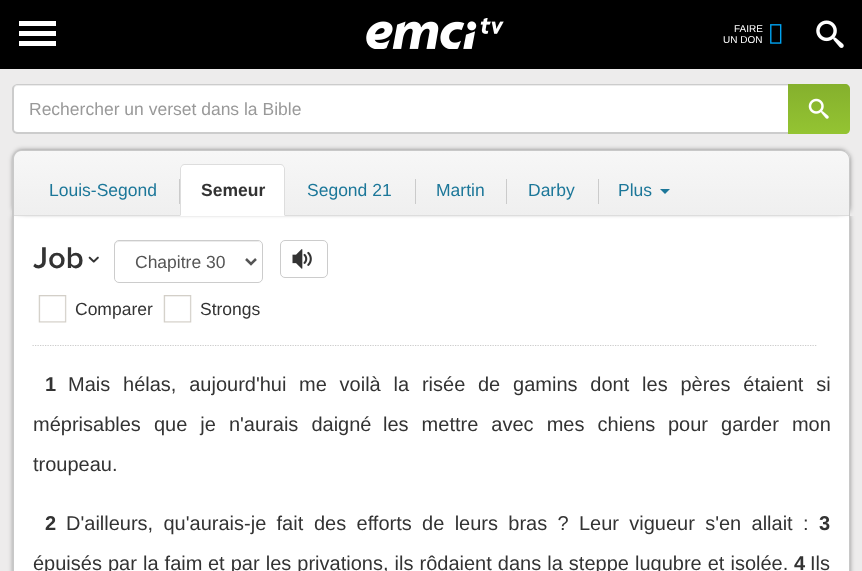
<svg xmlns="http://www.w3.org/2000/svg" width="862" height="571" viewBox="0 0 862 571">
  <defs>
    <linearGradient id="g1" gradientUnits="userSpaceOnUse" x1="819" y1="84" x2="819" y2="134"><stop offset="0" stop-color="rgb(133,176,45)"/><stop offset="1" stop-color="rgb(148,196,50)"/></linearGradient>
    <clipPath id="clip1"><path d="M22 150H841C846 150 850 154 850 159V216H13V159C13 154 17 150 22 150Z"/></clipPath>
    <linearGradient id="g2" gradientUnits="userSpaceOnUse" x1="431" y1="151" x2="431" y2="216"><stop offset="0" stop-color="rgb(247,247,247)"/><stop offset="1" stop-color="rgb(239,239,239)"/></linearGradient>
  </defs>
  <rect width="100%" height="100%" fill="rgb(237,236,236)"/>
  <rect x="0" y="0" width="862" height="69" fill="rgb(0,0,0)"/>
  <rect x="19" y="21" width="37" height="5" fill="rgb(255,255,255)"/>
  <rect x="19" y="31" width="37" height="5" fill="rgb(255,255,255)"/>
  <rect x="19" y="41" width="37" height="5" fill="rgb(255,255,255)"/>
  <image x="366" y="18" width="138" height="31" href="pic1.png"/>
  <g font-family="Liberation Sans" font-size="10" fill="rgb(255,255,255)">
    <text x="734" y="32">FAIRE</text>
    <text x="723" y="43">UN DON</text>
  </g>
  <image x="770" y="24" width="12" height="20" href="pic2.png"/>
  <image x="816" y="20" width="28" height="28" href="pic3.png"/>
  <rect x="20" y="213" width="830" height="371" rx="5" fill="rgba(0,0,0,0.4)" filter="blur(2.5px)"/>
  <rect x="13" y="213" width="830" height="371" rx="5" fill="rgba(0,0,0,0.4)" filter="blur(2.5px)"/>
  <rect x="14" y="216" width="835" height="355" fill="rgb(255,255,255)"/>
  <path d="M12 209H850V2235C850 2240 846 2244 841 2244H21C16 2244 12 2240 12 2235ZM14 209H849V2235C849 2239 845 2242 841 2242H21C17 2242 14 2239 14 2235Z" fill="rgb(200,200,200)" fill-rule="evenodd"/>
  <rect x="13" y="208" width="841" height="8" fill="rgb(237,236,236)"/>
  <path d="M18 84H789V134H18C15 134 13 132 13 129V89C13 86 15 84 18 84Z" fill="rgb(255,255,255)"/>
  <path d="M18 86H789V85H18C16 85 14 87 14 89V90C14 88 15 86 18 86Z" fill="rgb(236,236,236)"/>
  <path d="M18 84H789V134H18C15 134 12 132 12 129V89C12 86 15 84 18 84ZM18 85H789V132H18C15 132 14 131 14 129V89C14 87 15 85 18 85Z" fill="rgb(204,204,204)" fill-rule="evenodd"/>
  <text x="29" y="115" font-family="Liberation Sans" font-size="17.5" fill="rgb(153,153,153)">Rechercher un verset dans la Bible</text>
  <path d="M788 84H845C848 84 850 86 850 89V129C850 132 848 134 845 134H788Z" fill="url(#g1)"/>
  <image x="808" y="98" width="21" height="21" href="pic4.png"/>
  <rect x="20" y="154" width="830" height="59" rx="5" fill="rgba(0,0,0,0.4)" filter="blur(2.5px)"/>
  <rect x="13" y="154" width="830" height="59" rx="5" fill="rgba(0,0,0,0.4)" filter="blur(2.5px)"/>
  <rect x="16" y="150" width="830" height="59" rx="5" fill="rgba(0,0,0,0.4)" filter="blur(2.5px)"/>
  <g clip-path="url(#clip1)">
    <rect x="14" y="151" width="836" height="64" fill="url(#g2)"/>
  </g>
  <path d="M21 150H841C846 150 850 154 850 159V216H12V159C12 154 16 150 21 150ZM21 151H841C845 151 849 155 849 159V216H14V159C14 155 17 151 21 151Z" fill="rgb(200,200,200)" fill-rule="evenodd"/>
  <rect x="14" y="215" width="835" height="1" fill="rgb(221,221,221)"/>
  <text x="49" y="196" font-family="Liberation Sans" font-size="17.5" fill="rgb(28,119,153)">Louis-Segond</text>
  <rect x="179" y="179" width="1" height="25" fill="rgb(203,203,203)"/>
  <path d="M185 164H280C283 164 285 166 285 169V216H180V169C180 166 182 164 185 164Z" fill="rgb(255,255,255)"/>
  <path d="M185 164C184 164 182 164 182 165V166C183 165 184 165 185 165H280C281 165 282 165 283 166V165C283 164 281 164 280 164Z" fill="rgb(221,221,221)"/>
  <path d="M283 165C284 166 285 167 285 169V216L284 215V168L283 166Z" fill="rgb(221,221,221)"/>
  <path d="M180 169V216L181 215V168L182 166V165C181 166 180 167 180 169Z" fill="rgb(221,221,221)"/>
  <text x="201" y="196" font-family="Liberation Sans" font-size="17.5" font-weight="bold" fill="rgb(51,51,51)">Semeur</text>
  <text x="307" y="196" font-family="Liberation Sans" font-size="17.5" fill="rgb(28,119,153)">Segond 21</text>
  <rect x="415" y="179" width="1" height="25" fill="rgb(203,203,203)"/>
  <text x="436" y="196" font-family="Liberation Sans" font-size="17.5" fill="rgb(28,119,153)">Martin</text>
  <rect x="506" y="179" width="1" height="25" fill="rgb(203,203,203)"/>
  <text x="528" y="196" font-family="Liberation Sans" font-size="17.5" fill="rgb(28,119,153)">Darby</text>
  <rect x="598" y="179" width="1" height="25" fill="rgb(203,203,203)"/>
  <text x="618" y="196" font-family="Liberation Sans" font-size="17.5" fill="rgb(28,119,153)">Plus</text>
  <path d="M660 189H670L665 194Z" fill="rgb(28,119,153)"/>
  <text x="33" y="268" font-family="Proxima Nova" font-size="31" font-weight="600" fill="rgb(51,51,51)">Job</text>
  <image x="88" y="256" width="11" height="7" href="pic5.png"/>
  <path d="M119 242H258C260 242 261 244 261 246V245C261 243 259 241 257 241H119C117 241 115 243 115 245V246C115 244 117 242 119 242Z" fill="rgb(236,236,236)"/>
  <rect x="114.5" y="240.5" width="148" height="42" rx="4.5" fill="none" stroke="rgb(204,204,204)"/>
  <path d="M246 259L251 264L256 259" fill="none" stroke="rgb(85,85,85)" stroke-width="2.5"/>
  <text x="135" y="268" font-family="Liberation Sans" font-size="17.5" fill="rgb(85,85,85)">Chapitre 30</text>
  <rect x="280.5" y="240.5" width="47" height="37" rx="4.5" fill="none" stroke="rgb(204,204,204)"/>
  <image x="292" y="249" width="20" height="20" href="pic6.png"/>
  <path d="M32.5 345.5H817.5" fill="none" stroke="rgb(204,204,204)" stroke-width="1.2" stroke-dasharray="1.25 1.25"/>
  <image x="38" y="295" width="29" height="28" href="pic7.png"/>
  <text x="75" y="315" font-family="Liberation Sans" font-size="17.5" fill="rgb(51,51,51)">Comparer</text>
  <image x="163" y="295" width="29" height="28" href="pic7.png"/>
  <text x="200" y="315" font-family="Liberation Sans" font-size="17.5" fill="rgb(51,51,51)">Strongs</text>
  <text x="45" y="391" font-family="Liberation Sans" font-size="20" font-weight="bold" fill="rgb(51,51,51)">1</text>
  <g font-family="Liberation Sans" font-size="20" fill="rgb(51,51,51)">
    <text x="68" y="391" word-spacing="7.25">Mais hélas, aujourd'hui</text>
    <text x="299" y="391" word-spacing="7.25">me voilà la risée</text>
    <text x="478" y="391" word-spacing="7.25">de gamins dont les pères étaient si</text>
    <text x="33" y="431" word-spacing="7.5">méprisables que je n'aurais daigné</text>
    <text x="383" y="431" word-spacing="7.5">les mettre avec mes chiens</text>
    <text x="668" y="431" word-spacing="7.5">pour garder mon</text>
    <text x="33" y="471">troupeau.</text>
  </g>
  <text x="45" y="530" font-family="Liberation Sans" font-size="20" font-weight="bold" fill="rgb(51,51,51)">2</text>
  <g font-family="Liberation Sans" font-size="20" fill="rgb(51,51,51)">
    <text x="66" y="530" word-spacing="4.75">D'ailleurs, qu'aurais-je fait</text>
    <text x="314" y="530" word-spacing="4.75">des efforts de leurs bras ? Leur vigueur s'en allait :</text>
  </g>
  <text x="819" y="530" font-family="Liberation Sans" font-size="20" font-weight="bold" fill="rgb(51,51,51)">3</text>
  <g font-family="Liberation Sans" font-size="20" fill="rgb(51,51,51)">
    <text x="33" y="570" word-spacing="0.5">épuisés par la faim</text>
    <text x="208" y="570" word-spacing="0.5">et par les privations, ils rôdaient dans la steppe lugubre et isolée.</text>
  </g>
  <text x="794" y="570" font-family="Liberation Sans" font-size="20" font-weight="bold" fill="rgb(51,51,51)">4</text>
  <text x="810" y="570" font-family="Liberation Sans" font-size="20" fill="rgb(51,51,51)">Ils</text>
</svg>
